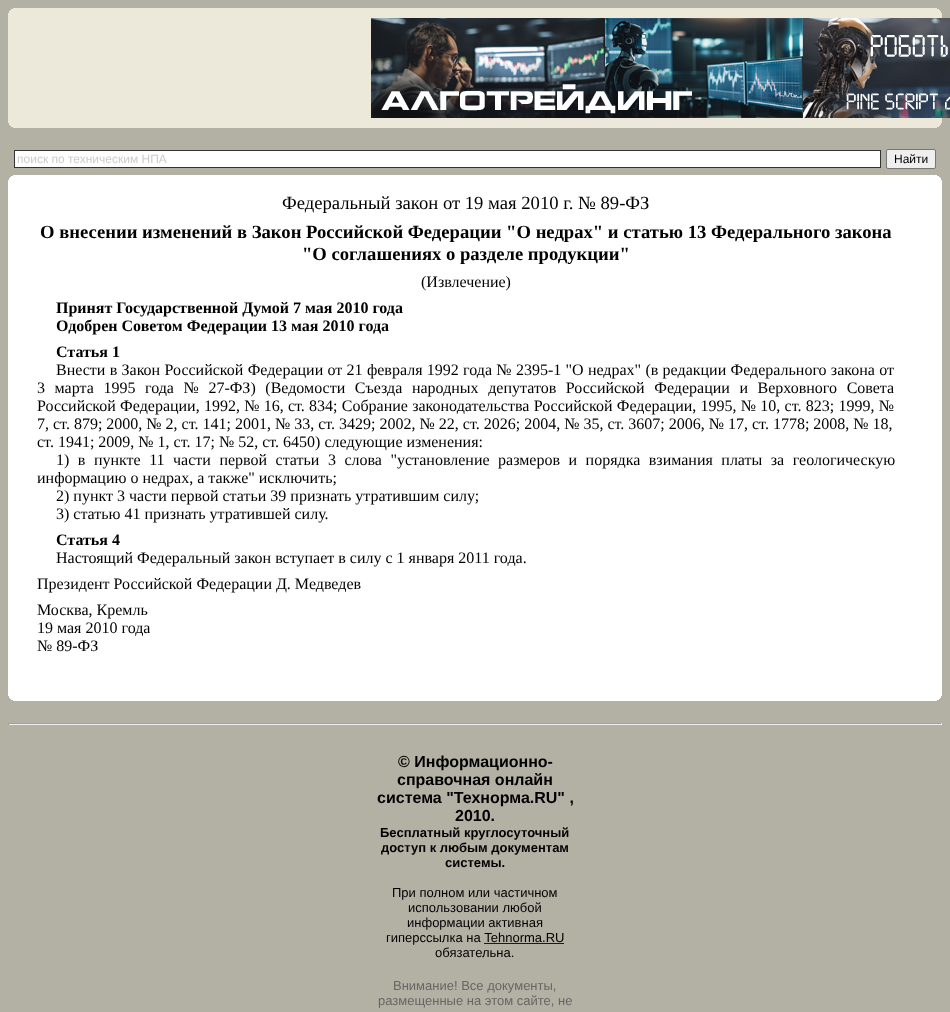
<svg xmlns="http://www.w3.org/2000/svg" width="950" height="1012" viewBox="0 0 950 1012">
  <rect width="100%" height="100%" fill="rgb(179,176,164)"/>
  <rect x="13" y="8" width="924" height="1" fill="rgb(236,233,218)"/>
  <rect x="11" y="9" width="928" height="1" fill="rgb(236,233,218)"/>
  <rect x="10" y="10" width="930" height="1" fill="rgb(236,233,218)"/>
  <rect x="9" y="11" width="932" height="2" fill="rgb(236,233,218)"/>
  <rect x="8" y="13" width="934" height="110" fill="rgb(236,233,218)"/>
  <image x="371" y="18" width="579" height="100" href="pic1.png"/>
  <rect x="9" y="123" width="932" height="2" fill="rgb(236,233,218)"/>
  <rect x="10" y="125" width="930" height="1" fill="rgb(236,233,218)"/>
  <rect x="11" y="126" width="928" height="1" fill="rgb(236,233,218)"/>
  <rect x="13" y="127" width="924" height="1" fill="rgb(236,233,218)"/>
  <rect x="14.5" y="150.5" width="866" height="17" fill="rgb(255,255,255)" stroke="rgb(51,51,51)"/>
  <text x="17" y="163" font-family="Liberation Sans" font-size="12" fill="rgb(204,204,204)">поиск по техническим НПА</text>
  <rect x="886.5" y="149.5" width="49" height="19" rx="1.5" fill="rgb(239,239,239)" stroke="rgb(118,118,118)"/>
  <text x="894" y="163" font-family="Liberation Sans" font-size="12" fill="rgb(0,0,0)">Найти</text>
  <rect x="13" y="175" width="924" height="1" fill="rgb(255,255,255)"/>
  <rect x="11" y="176" width="928" height="1" fill="rgb(255,255,255)"/>
  <rect x="10" y="177" width="930" height="1" fill="rgb(255,255,255)"/>
  <rect x="9" y="178" width="932" height="2" fill="rgb(255,255,255)"/>
  <rect x="8" y="180" width="934" height="516" fill="rgb(255,255,255)"/>
  <text x="282" y="209" font-family="Liberation Serif" font-size="18.65" fill="rgb(0,0,0)">Федеральный закон от 19 мая 2010 г. № 89-ФЗ</text>
  <g font-family="Liberation Serif" font-size="18.65" font-weight="bold" fill="rgb(0,0,0)">
    <text x="40" y="238">О внесении изменений в Закон Российской Федерации "О недрах" и статью 13 Федерального закона</text>
    <text x="302" y="260">"О соглашениях о разделе продукции"</text>
  </g>
  <text x="421" y="287" font-family="Liberation Serif" font-size="16" fill="rgb(0,0,0)">(Извлечение)</text>
  <g font-family="Liberation Serif" font-size="16" font-weight="bold" fill="rgb(0,0,0)">
    <text>
      <tspan x="56" y="313">Принят Государственной Думой 7 мая 2010 года</tspan>
      <tspan x="56" y="331">Одобрен Советом Федерации 13 мая 2010 года</tspan>
      <tspan x="56" y="357">Статья 1</tspan>
    </text>
  </g>
  <g font-family="Liberation Serif" font-size="16" fill="rgb(0,0,0)">
    <text x="56" y="375" word-spacing="0.3">Внести в Закон Российской Федерации от 21 февраля 1992 года № 2395-1 "О недрах" (в редакции Федерального закона от</text>
    <text>
      <tspan x="37" y="393" word-spacing="5.6">3 марта 1995 года № 27-ФЗ) (Ведомости Съезда народных депутатов Российской Федерации и Верховного Совета</tspan>
      <tspan x="37" y="411" word-spacing="0.25">Российской Федерации, 1992, № 16, ст. 834; Собрание законодательства Российской Федерации, 1995, № 10, ст. 823; 1999, №</tspan>
      <tspan x="37" y="429">7, ст. 879; 2000, № 2, ст. 141; 2001, № 33, ст. 3429; 2002, № 22, ст. 2026; 2004, № 35, ст. 3607; 2006, № 17, ст. 1778; 2008, № 18,</tspan>
      <tspan x="37" y="447">ст. 1941; 2009, № 1, ст. 17; № 52, ст. 6450) следующие изменения:</tspan>
    </text>
    <text x="56" y="465" word-spacing="4.5">1) в пункте 11 части первой статьи 3 слова "установление размеров и порядка взимания платы за геологическую</text>
    <text x="37" y="483">информацию о недрах, а также" исключить;</text>
    <text>
      <tspan x="56" y="501">2) пункт 3 части первой статьи 39 признать утратившим силу;</tspan>
      <tspan x="56" y="519">3) статью 41 признать утратившей силу.</tspan>
    </text>
  </g>
  <text x="56" y="545" font-family="Liberation Serif" font-size="16" font-weight="bold" fill="rgb(0,0,0)">Статья 4</text>
  <g font-family="Liberation Serif" font-size="16" fill="rgb(0,0,0)">
    <text x="56" y="563">Настоящий Федеральный закон вступает в силу с 1 января 2011 года.</text>
    <text>
      <tspan x="37" y="589">Президент Российской Федерации Д. Медведев</tspan>
      <tspan x="37" y="615">Москва, Кремль</tspan>
      <tspan x="37" y="633">19 мая 2010 года</tspan>
      <tspan x="37" y="651">№ 89-ФЗ</tspan>
    </text>
  </g>
  <rect x="9" y="696" width="932" height="2" fill="rgb(255,255,255)"/>
  <rect x="10" y="698" width="930" height="1" fill="rgb(255,255,255)"/>
  <rect x="11" y="699" width="928" height="1" fill="rgb(255,255,255)"/>
  <rect x="13" y="700" width="924" height="1" fill="rgb(255,255,255)"/>
  <rect x="8" y="723" width="934" height="1" fill="rgb(159,159,159)"/>
  <rect x="941" y="723" width="1" height="2" fill="rgb(238,238,238)"/>
  <rect x="8" y="724" width="934" height="1" fill="rgb(238,238,238)"/>
  <rect x="8" y="723" width="1" height="2" fill="rgb(159,159,159)"/>
  <g font-family="Liberation Sans" font-size="16" font-weight="bold" fill="rgb(0,0,0)">
    <text x="398" y="767">© Информационно-</text>
    <text x="397" y="785">справочная онлайн</text>
    <text x="377" y="803">система "Технорма.RU" ,</text>
    <text x="455" y="821">2010.</text>
  </g>
  <g font-family="Liberation Sans" font-size="13" font-weight="bold" fill="rgb(0,0,0)">
    <text x="380" y="837">Бесплатный круглосуточный</text>
    <text x="381" y="852">доступ к любым документам</text>
    <text x="445" y="867">системы.</text>
  </g>
  <g font-family="Liberation Sans" font-size="13" fill="rgb(0,0,0)">
    <text x="392" y="897">При полном или частичном</text>
    <text x="408" y="912">использовании любой</text>
    <text x="407" y="927">информации активная</text>
    <text x="386" y="942">гиперссылка на Tehnorma.RU</text>
  </g>
  <rect x="484" y="943" width="80" height="1" fill="rgb(0,0,238)"/>
  <text x="435" y="957" font-family="Liberation Sans" font-size="13" fill="rgb(0,0,0)">обязательна.</text>
  <g font-family="Liberation Sans" font-size="13" fill="rgb(102,102,102)">
    <text x="393" y="990">Внимание! Все документы,</text>
    <text x="378" y="1005">размещенные на этом сайте, не</text>
  </g>
</svg>
